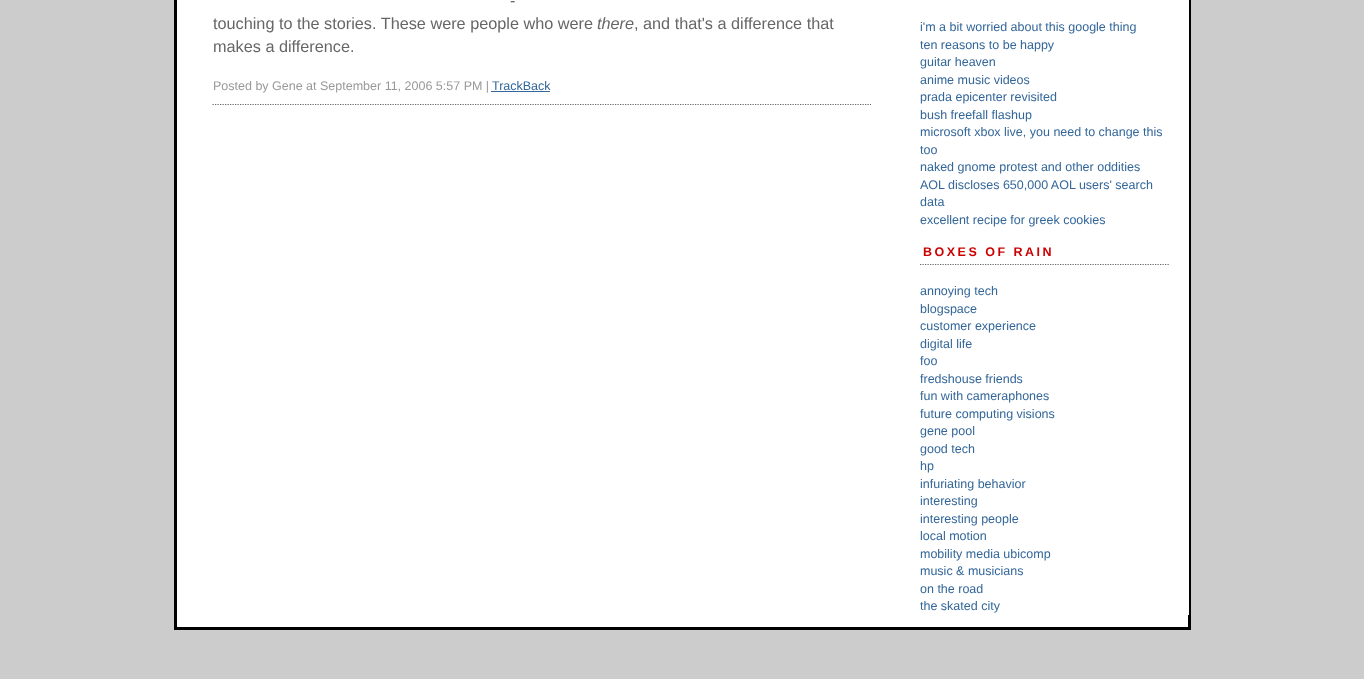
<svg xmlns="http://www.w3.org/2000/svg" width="1364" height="679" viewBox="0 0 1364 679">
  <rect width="100%" height="100%" fill="rgb(204,204,204)"/>
  <rect x="175.5" y="-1.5" width="1014" height="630" fill="rgb(255,255,255)" stroke="rgb(0,0,0)" stroke-width="3"/>
  <path d="M212.5 104.5H871" fill="none" stroke="rgb(102,102,102)" stroke-width="1.2" stroke-dasharray="1.25 1.25"/>
  <g font-family="Liberation Sans" font-size="16.25" fill="rgb(102,102,102)">
    <text x="510" y="6">-</text>
    <text x="213" y="29">touching to the stories. These were people who were</text>
  </g>
  <text x="597" y="29" font-family="Liberation Sans" font-size="16.25" font-style="italic" fill="rgb(102,102,102)">there</text>
  <g font-family="Liberation Sans" font-size="16.25" fill="rgb(102,102,102)">
    <text x="634" y="29">, and that's a difference that</text>
    <text x="213" y="52">makes a difference.</text>
  </g>
  <text x="213" y="90" font-family="Liberation Sans" font-size="12.5" fill="rgb(153,153,153)">Posted by Gene at September 11, 2006 5:57 PM |</text>
  <text x="492" y="90" font-family="Liberation Sans" font-size="12.5" fill="rgb(51,102,153)">TrackBack</text>
  <rect x="491" y="91" width="59" height="1" fill="rgb(51,102,153)"/>
  <rect x="1188" y="0" width="1" height="615" fill="rgb(255,255,255)"/>
  <g font-family="Liberation Sans" font-size="12.5" fill="rgb(51,102,153)">
    <text>
      <tspan x="920" y="31">i'm a bit worried about this google thing</tspan>
      <tspan x="920" y="49">ten reasons to be happy</tspan>
      <tspan x="920" y="66">guitar heaven</tspan>
      <tspan x="920" y="84">anime music videos</tspan>
      <tspan x="920" y="101">prada epicenter revisited</tspan>
      <tspan x="920" y="119">bush freefall flashup</tspan>
      <tspan x="920" y="136">microsoft xbox live, you need to change this</tspan>
      <tspan x="920" y="154">too</tspan>
      <tspan x="920" y="171">naked gnome protest and other oddities</tspan>
      <tspan x="920" y="189">AOL discloses 650,000 AOL users' search</tspan>
      <tspan x="920" y="206">data</tspan>
      <tspan x="920" y="224">excellent recipe for greek cookies</tspan>
    </text>
  </g>
  <path d="M920 264.5H1169" fill="none" stroke="rgb(102,102,102)" stroke-width="1.2" stroke-dasharray="1.25 1.25"/>
  <text x="923" y="256" font-family="Liberation Sans" font-size="12.5" font-weight="bold" letter-spacing="2.5" fill="rgb(204,0,0)">BOXES OF RAIN</text>
  <rect x="920" y="265" width="249" height="1" fill="rgb(255,255,255)"/>
  <g font-family="Liberation Sans" font-size="12.5" fill="rgb(51,102,153)">
    <text>
      <tspan x="920" y="295">annoying tech</tspan>
      <tspan x="920" y="313">blogspace</tspan>
      <tspan x="920" y="330">customer experience</tspan>
      <tspan x="920" y="348">digital life</tspan>
      <tspan x="920" y="365">foo</tspan>
      <tspan x="920" y="383">fredshouse friends</tspan>
      <tspan x="920" y="400">fun with cameraphones</tspan>
      <tspan x="920" y="418">future computing visions</tspan>
      <tspan x="920" y="435">gene pool</tspan>
      <tspan x="920" y="453">good tech</tspan>
      <tspan x="920" y="470">hp</tspan>
      <tspan x="920" y="488">infuriating behavior</tspan>
      <tspan x="920" y="505">interesting</tspan>
      <tspan x="920" y="523">interesting people</tspan>
      <tspan x="920" y="540">local motion</tspan>
      <tspan x="920" y="558">mobility media ubicomp</tspan>
      <tspan x="920" y="575">music &amp; musicians</tspan>
      <tspan x="920" y="593">on the road</tspan>
      <tspan x="920" y="610">the skated city</tspan>
    </text>
  </g>
</svg>
